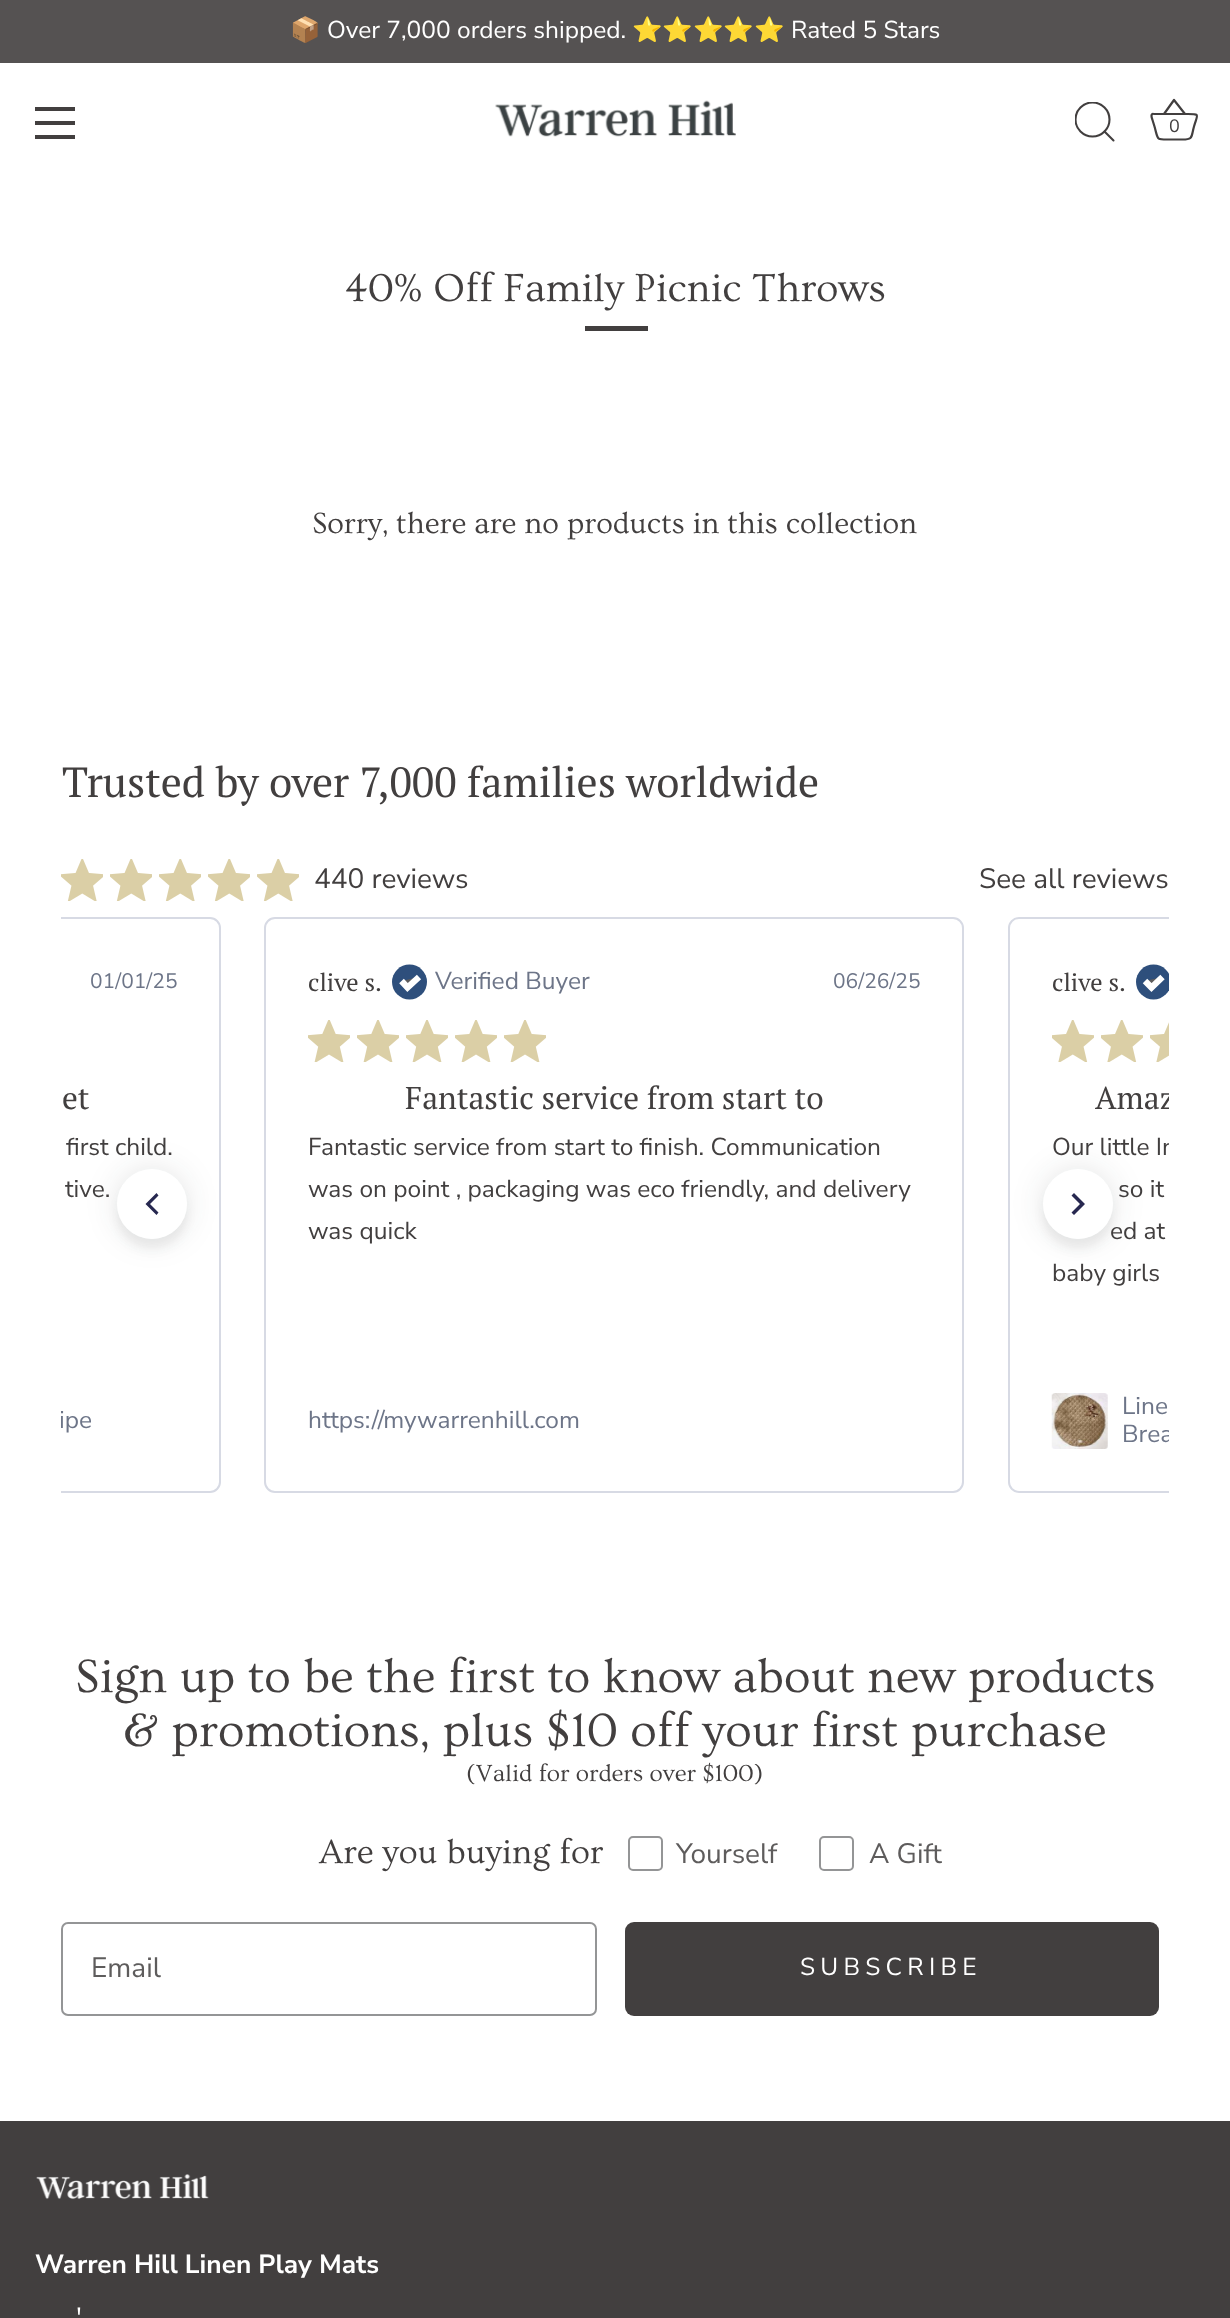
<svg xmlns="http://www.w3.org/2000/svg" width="1230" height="2318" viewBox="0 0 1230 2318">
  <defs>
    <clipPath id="clip1"><rect x="1075" y="102" width="42" height="42"/></clipPath>
    <clipPath id="clip2"><rect x="61" y="917" width="1108" height="576"/></clipPath>
    <clipPath id="clip3"><rect x="61" y="1407" width="30" height="28"/></clipPath>
    <clipPath id="clip4"><rect x="1132" y="961" width="37" height="42"/></clipPath>
    <clipPath id="clip5"><rect x="1052" y="1076" width="117" height="44"/></clipPath>
    <clipPath id="clip6"><rect x="1052" y="1127" width="117" height="245"/></clipPath>
    <clipPath id="clip7"><rect x="1122" y="1393" width="47" height="56"/></clipPath>
  </defs>
  <rect width="100%" height="100%" fill="rgb(255,255,255)"/>
  <rect x="0" y="0" width="1230" height="63" fill="rgb(85,82,82)"/>
  <text x="290" y="38" font-family="Noto Color Emoji" font-size="24.5" fill="rgb(255,255,255)">📦</text>
  <text x="327" y="38" font-family="Nunito Sans" font-size="24.5" font-weight="200" fill="rgb(255,255,255)">Over 7,000 orders shipped.</text>
  <text x="632" y="38" font-family="Noto Color Emoji" font-size="24.5" fill="rgb(255,255,255)">⭐⭐⭐⭐⭐</text>
  <text x="791" y="38" font-family="Nunito Sans" font-size="24.5" font-weight="200" fill="rgb(255,255,255)">Rated 5 Stars</text>
  <rect x="35" y="107" width="40" height="4" fill="rgb(66,63,63)"/>
  <rect x="35" y="121" width="40" height="4" fill="rgb(66,63,63)"/>
  <rect x="35" y="135" width="40" height="4" fill="rgb(66,63,63)"/>
  <image x="495" y="100" width="241" height="37" href="pic1.png"/>
  <g clip-path="url(#clip1)">
    <circle cx="1092.5" cy="119.5" r="17" fill="none" stroke="rgb(66,63,63)" stroke-width="2.1"/>
  </g>
  <path d="M1113.5 140.5L1104.5 131.5" fill="none" stroke="rgb(66,63,63)" stroke-width="2.1" stroke-linecap="round" stroke-linejoin="round"/>
  <path d="M1153.5 114C1150 113.5 1152 118.5 1152.5 120L1154.5 126.5C1158.5 140.5 1155.5 139.5 1170 139.5H1182.5C1193.5 139.5 1191 137 1194 126.5C1197.5 114 1200.5 114 1188 114H1153.5M1164 114L1174 100L1185 114" fill="none" stroke="rgb(66,63,63)" stroke-width="2.2" stroke-linejoin="round"/>
  <text x="1169" y="132" font-family="Nunito Sans" font-size="18" font-weight="200" fill="rgb(66,63,63)">0</text>
  <text x="345" y="301" font-family="Ovo" font-size="41" fill="rgb(66,63,63)">40% Off Family Picnic Throws</text>
  <rect x="585" y="326" width="63" height="5" fill="rgb(66,63,63)"/>
  <text x="312" y="533" font-family="Ovo" font-size="30.8" fill="rgb(66,63,63)">Sorry, there are no products in this collection</text>
  <text x="62" y="797" font-family="PT Serif" font-size="42" fill="rgb(66,63,63)">Trusted by over 7,000 families worldwide</text>
  <image x="61" y="859" width="42" height="42" href="pic2.png"/>
  <image x="110" y="859" width="42" height="42" href="pic2.png"/>
  <image x="159" y="859" width="42" height="42" href="pic2.png"/>
  <image x="208" y="859" width="42" height="42" href="pic2.png"/>
  <image x="257" y="859" width="42" height="42" href="pic2.png"/>
  <g font-family="Nunito Sans" font-size="28" font-weight="200" fill="rgb(66,63,63)">
    <text x="314" y="888">440 reviews</text>
    <text x="979" y="888">See all reviews</text>
  </g>
  <g clip-path="url(#clip2)">
    <rect x="-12" y="918" width="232" height="574" rx="10" fill="none" stroke="rgb(215,218,228)" stroke-width="2"/>
  </g>
  <text x="90" y="988" font-family="Nunito Sans" font-size="21" font-weight="200" fill="rgb(109,117,136)">01/01/25</text>
  <text x="62" y="1109" font-family="PT Serif" font-size="31.5" fill="rgb(66,63,63)">et</text>
  <g font-family="Nunito Sans" font-size="24.5" font-weight="200" fill="rgb(66,63,63)">
    <text x="66" y="1155">first child.</text>
    <text x="65" y="1197">tive.</text>
  </g>
  <g clip-path="url(#clip3)">
    <text x="59" y="1428" font-family="Nunito Sans" font-size="24.5" font-weight="200" fill="rgb(109,117,136)">ipe</text>
  </g>
  <rect x="265" y="918" width="698" height="574" rx="10" fill="none" stroke="rgb(215,218,228)" stroke-width="2"/>
  <text x="308" y="991" font-family="PT Serif" font-size="24.5" fill="rgb(66,63,63)">clive s.</text>
  <circle cx="409.5" cy="982" r="17.5" fill="rgb(46,79,124)"/>
  <path d="M401.5 981L407.5 987.5L419 977" fill="rgb(94,92,92)" stroke="rgb(255,255,255)" stroke-width="6.3"/>
  <text x="435" y="989" font-family="Nunito Sans" font-size="24.5" font-weight="200" fill="rgb(109,117,136)">Verified Buyer</text>
  <text x="833" y="988" font-family="Nunito Sans" font-size="21" font-weight="200" fill="rgb(109,117,136)">06/26/25</text>
  <image x="308" y="1020" width="42" height="42" href="pic3.png"/>
  <image x="357" y="1020" width="42" height="42" href="pic3.png"/>
  <image x="406" y="1020" width="42" height="42" href="pic3.png"/>
  <image x="455" y="1020" width="42" height="42" href="pic3.png"/>
  <image x="504" y="1020" width="42" height="42" href="pic3.png"/>
  <text x="405" y="1109" font-family="PT Serif" font-size="31.5" fill="rgb(66,63,63)">Fantastic service from start to</text>
  <g font-family="Nunito Sans" font-size="24.5" font-weight="200" fill="rgb(66,63,63)">
    <text>
      <tspan x="308" y="1155">Fantastic service from start to finish. Communication</tspan>
      <tspan x="308" y="1197">was on point , packaging was eco friendly, and delivery</tspan>
      <tspan x="308" y="1239">was quick</tspan>
    </text>
  </g>
  <text x="308" y="1428" font-family="Nunito Sans" font-size="24.5" font-weight="200" fill="rgb(109,117,136)">https://mywarrenhill.com</text>
  <g clip-path="url(#clip2)">
    <rect x="1009" y="918" width="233" height="574" rx="10" fill="none" stroke="rgb(215,218,228)" stroke-width="2"/>
  </g>
  <text x="1052" y="991" font-family="PT Serif" font-size="24.5" fill="rgb(66,63,63)">clive s.</text>
  <g clip-path="url(#clip4)">
    <circle cx="1153.5" cy="982" r="17.5" fill="rgb(46,79,124)"/>
  </g>
  <path d="M1145 981L1151.5 987.5L1162.5 977" fill="rgb(94,92,92)" stroke="rgb(255,255,255)" stroke-width="6.3"/>
  <image x="1052" y="1020" width="42" height="42" href="pic4.png"/>
  <image x="1101" y="1020" width="42" height="42" href="pic4.png"/>
  <image x="1150" y="1022" width="19" height="40" href="pic5.png"/>
  <g clip-path="url(#clip5)">
    <text x="1095" y="1109" font-family="PT Serif" font-size="31.5" fill="rgb(66,63,63)">Amaz</text>
  </g>
  <g clip-path="url(#clip6)">
    <text x="1052" y="1155" font-family="Nunito Sans" font-size="24.5" font-weight="200" fill="rgb(66,63,63)">Our little In</text>
  </g>
  <g font-family="Nunito Sans" font-size="24.5" font-weight="200" fill="rgb(66,63,63)">
    <text x="1118" y="1197">so it</text>
    <text x="1110" y="1239">ed at</text>
    <text x="1052" y="1281">baby girls</text>
  </g>
  <image x="1051" y="1393" width="57" height="56" href="pic6.png"/>
  <text x="1122" y="1414" font-family="Nunito Sans" font-size="24.5" font-weight="200" fill="rgb(109,117,136)">Line</text>
  <g clip-path="url(#clip7)">
    <text x="1122" y="1442" font-family="Nunito Sans" font-size="24.5" font-weight="200" fill="rgb(109,117,136)">Brea</text>
  </g>
  <rect x="117" y="1180" width="70" height="70" rx="35" fill="rgba(28,29,33,0.06)" filter="blur(5px)"/>
  <rect x="117" y="1169" width="70" height="70" rx="35" fill="rgba(28,29,33,0.12)" filter="blur(16px)"/>
  <circle cx="152" cy="1204" r="35" fill="rgb(255,255,255)"/>
  <circle cx="152" cy="1204" r="33" fill="none" stroke="rgba(255,255,255,0.5)" stroke-width="4"/>
  <path d="M150 1204L158.5 1212.5L156.5 1215L145.5 1204L156.5 1193L158.5 1195.5Z" fill="rgb(39,40,80)"/>
  <rect x="1043" y="1180" width="70" height="70" rx="35" fill="rgba(28,29,33,0.06)" filter="blur(5px)"/>
  <rect x="1043" y="1169" width="70" height="70" rx="35" fill="rgba(28,29,33,0.12)" filter="blur(16px)"/>
  <circle cx="1078" cy="1204" r="35" fill="rgb(255,255,255)"/>
  <circle cx="1078" cy="1204" r="33" fill="none" stroke="rgba(255,255,255,0.5)" stroke-width="4"/>
  <path d="M1080 1204L1071.5 1195.5L1074 1193L1085 1204L1074 1215L1071.5 1212.5Z" fill="rgb(39,40,80)"/>
  <g font-family="Ovo" font-size="49" fill="rgb(66,63,63)">
    <text x="75" y="1692">Sign up to be the first to know about new products</text>
    <text x="123" y="1746">&amp; promotions, plus $10 off your first purchase</text>
  </g>
  <text x="466" y="1781" font-family="Ovo" font-size="24.5" fill="rgb(66,63,63)">(Valid for orders over $100)</text>
  <text x="319" y="1863" font-family="Ovo" font-size="35" fill="rgb(66,63,63)">Are you buying for</text>
  <rect x="629" y="1837" width="33" height="33" rx="4" fill="none" stroke="rgb(148,149,150)" stroke-width="2"/>
  <text x="676" y="1863" font-family="Nunito Sans" font-size="28" font-weight="200" fill="rgb(94,92,92)">Yourself</text>
  <rect x="820" y="1837" width="33" height="33" rx="4" fill="none" stroke="rgb(148,149,150)" stroke-width="2"/>
  <text x="869" y="1863" font-family="Nunito Sans" font-size="28" font-weight="200" fill="rgb(94,92,92)">A Gift</text>
  <rect x="62" y="1923" width="534" height="92" rx="6" fill="none" stroke="rgb(148,149,150)" stroke-width="2"/>
  <text x="91" y="1977" font-family="Nunito Sans" font-size="28" font-weight="200" fill="rgb(94,92,92)">Email</text>
  <rect x="625" y="1922" width="534" height="94" rx="9" fill="rgb(66,63,63)"/>
  <text x="800" y="1975" font-family="Nunito Sans" font-size="24.5" font-weight="200" letter-spacing="5.25" fill="rgb(255,255,255)">SUBSCRIBE</text>
  <rect x="0" y="2121" width="1230" height="197" fill="rgb(66,63,63)"/>
  <image x="36" y="2174" width="173" height="26" href="pic7.png"/>
  <text x="35" y="2273" font-family="Nunito Sans" font-size="26.25" font-weight="bold" fill="rgb(255,255,255)">Warren Hill Linen Play Mats</text>
  <text x="76" y="2326" font-family="Nunito Sans" font-size="26.25" font-weight="200" fill="rgb(255,255,255)">'</text>
</svg>
